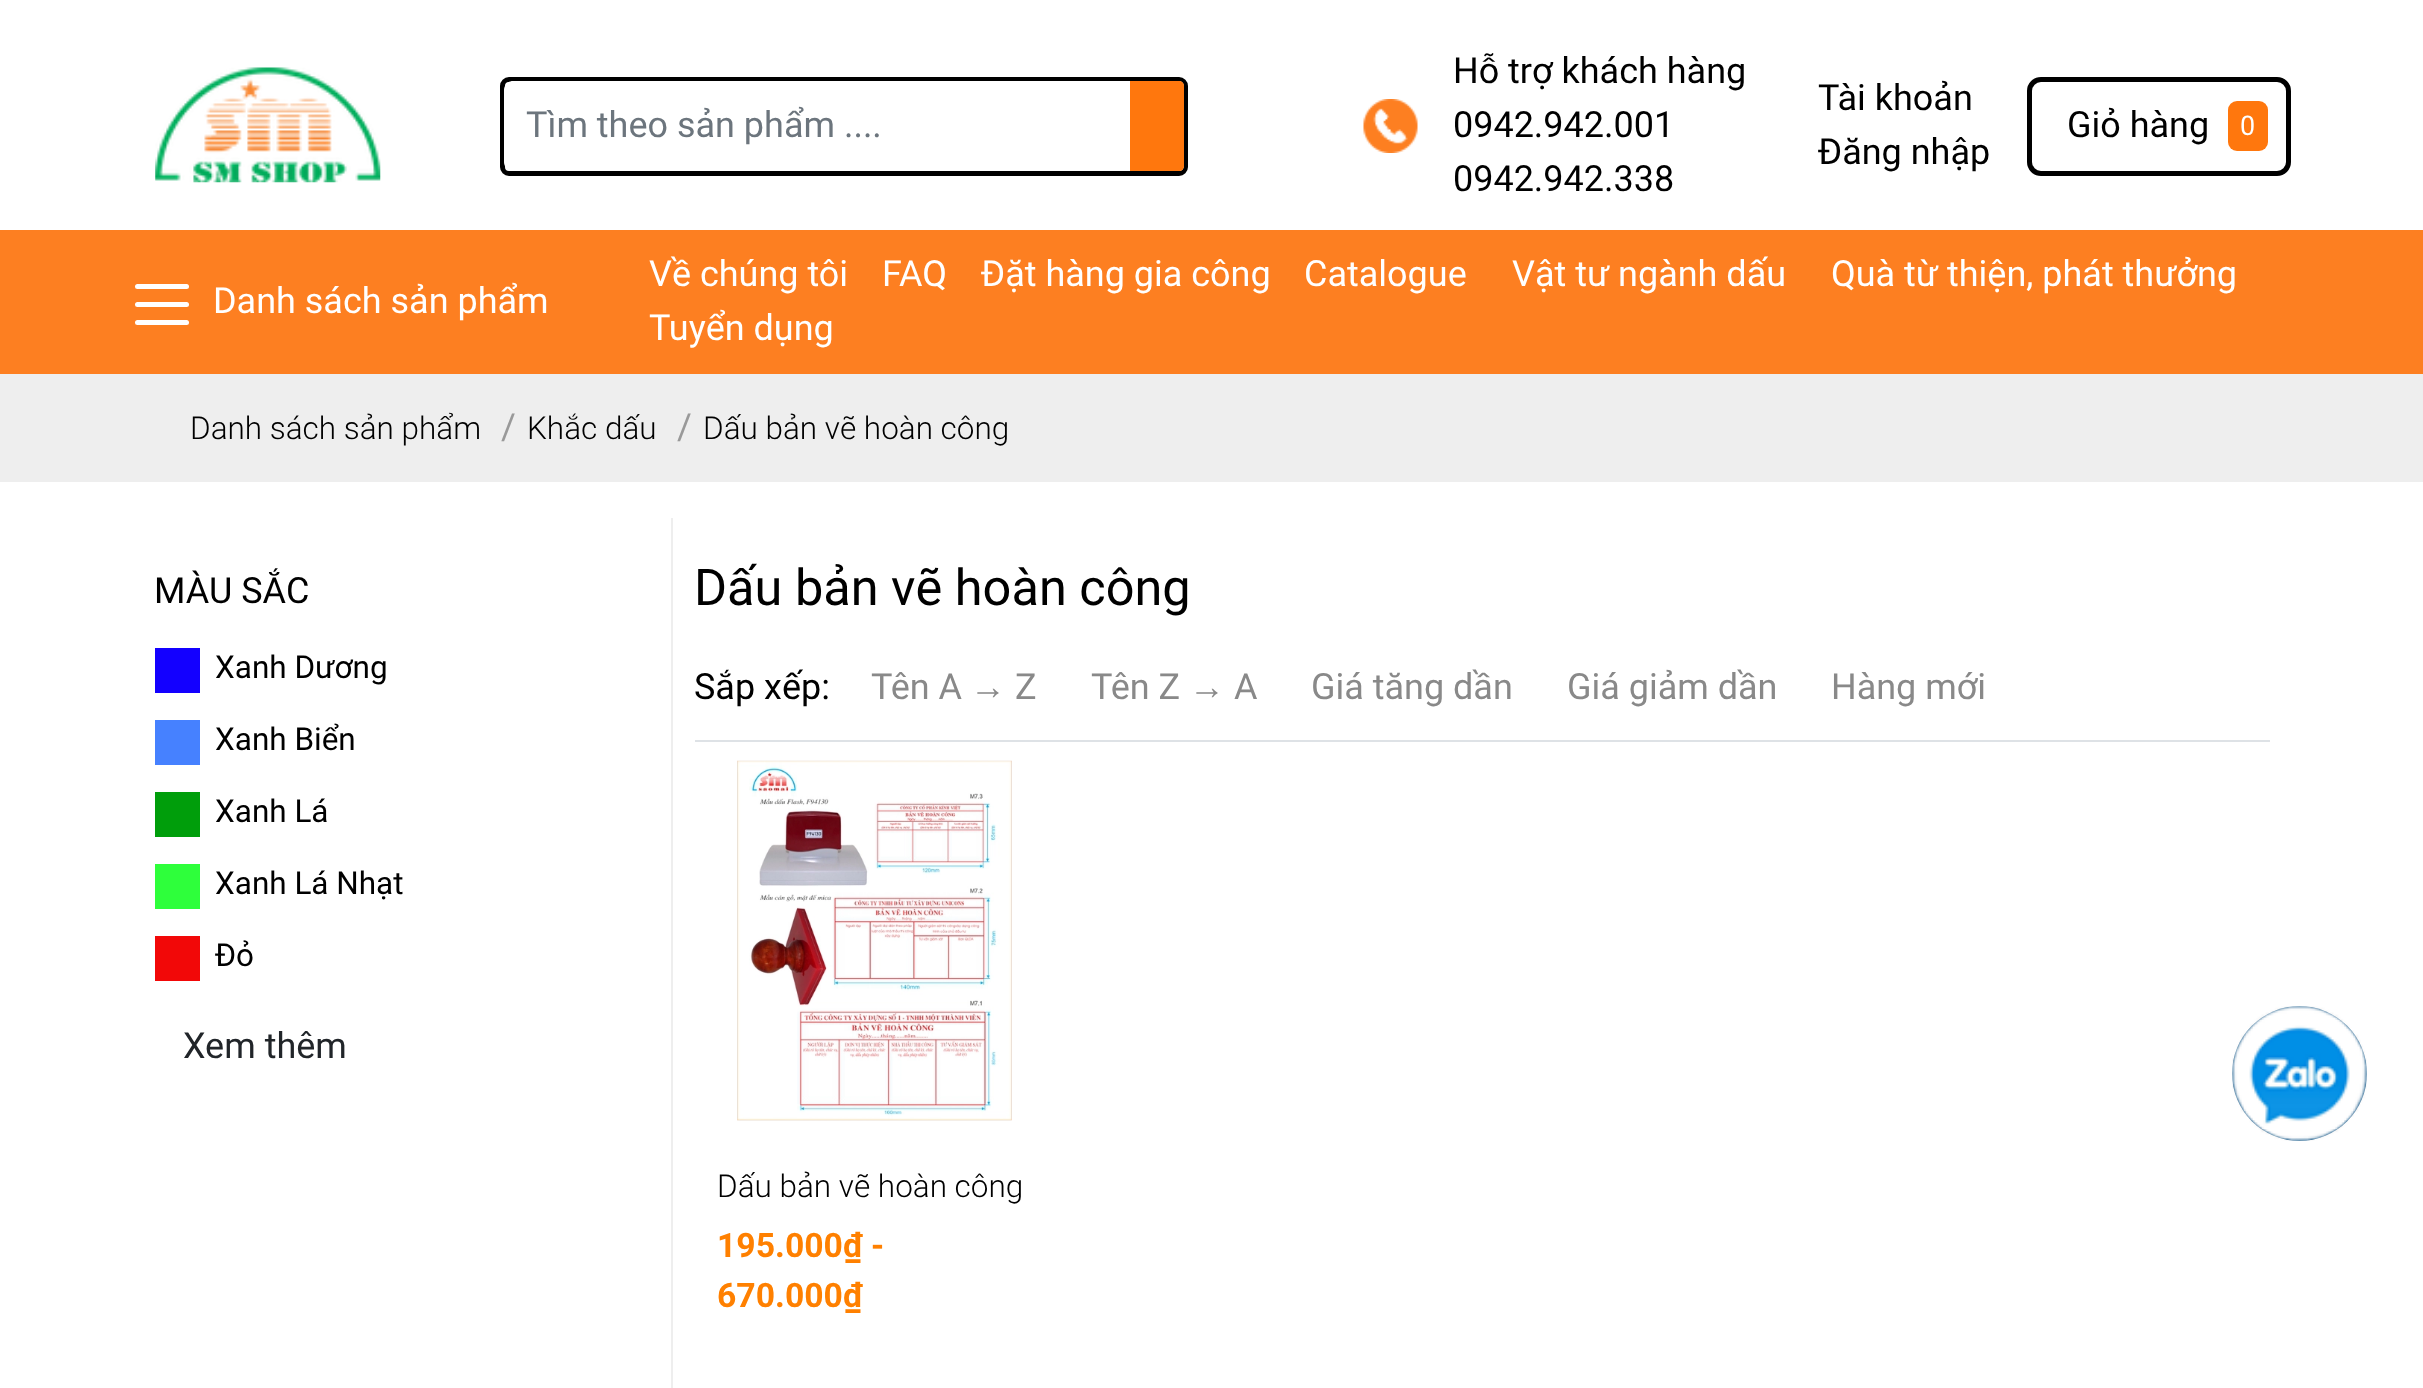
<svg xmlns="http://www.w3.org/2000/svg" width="2423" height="1388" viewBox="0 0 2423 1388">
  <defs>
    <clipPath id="clip1"><rect x="504" y="81" width="680" height="90" rx="5"/></clipPath>
  </defs>
  <rect width="100%" height="100%" fill="rgb(255,255,255)"/>
  <image x="155" y="67" width="226" height="116" href="pic1.png"/>
  <rect x="502.5" y="79.5" width="683" height="94" rx="6.5" fill="none" stroke="rgb(0,0,0)" stroke-width="5"/>
  <g clip-path="url(#clip1)">
    <path d="M513 81H1179C1182 81 1184 83 1184 86V166C1184 169 1182 171 1179 171H513C508 171 504 167 504 162V90C504 85 508 81 513 81Z" fill="rgb(255,255,255)"/>
  </g>
  <text x="526" y="137" font-family="Roboto" font-size="36" fill="rgb(108,117,125)">Tìm theo sản phẩm ....</text>
  <path d="M1130 81H1179C1182 81 1184 83 1184 86V166C1184 169 1182 171 1179 171H1130Z" fill="rgb(255,119,13)"/>
  <image x="1363" y="99" width="55" height="54" href="pic2.png"/>
  <g font-family="Roboto" font-size="36" fill="rgb(0,0,0)">
    <text>
      <tspan x="1453" y="83">Hỗ trợ khách hàng</tspan>
      <tspan x="1453" y="137">0942.942.001</tspan>
      <tspan x="1453" y="191">0942.942.338</tspan>
    </text>
    <text>
      <tspan x="1818" y="110">Tài khoản</tspan>
      <tspan x="1818" y="164">Đăng nhập</tspan>
    </text>
  </g>
  <rect x="2029.5" y="79.5" width="259" height="94" rx="11.5" fill="none" stroke="rgb(0,0,0)" stroke-width="5"/>
  <text x="2067" y="137" font-family="Roboto" font-size="36" fill="rgb(0,0,0)">Giỏ hàng</text>
  <rect x="2228" y="101" width="40" height="50" rx="9" fill="rgb(255,119,13)"/>
  <text x="2240" y="135" font-family="Roboto" font-size="27" fill="rgb(255,255,255)">0</text>
  <rect x="0" y="230" width="2423" height="144" fill="rgb(253,127,33)"/>
  <rect x="135" y="284" width="54" height="5" rx="2.5" fill="rgb(255,255,255)"/>
  <rect x="135" y="302" width="54" height="5" rx="2.5" fill="rgb(255,255,255)"/>
  <rect x="135" y="320" width="54" height="5" rx="2.5" fill="rgb(255,255,255)"/>
  <g font-family="Roboto" font-size="36" fill="rgb(255,255,255)">
    <text x="213" y="313">Danh sách sản phẩm</text>
    <text x="649" y="286">Về chúng tôi</text>
    <text x="882" y="286">FAQ</text>
    <text x="981" y="286">Đặt hàng gia công</text>
    <text x="1304" y="286">Catalogue</text>
    <text x="1512" y="286">Vật tư ngành dấu</text>
    <text x="1831" y="286">Quà từ thiện, phát thưởng</text>
    <text x="649" y="340">Tuyển dụng</text>
  </g>
  <rect x="0" y="374" width="2423" height="108" fill="rgb(238,238,238)"/>
  <text x="190" y="439" font-family="Roboto" font-size="31.5" font-weight="300" fill="rgb(0,0,0)">Danh sách sản phẩm</text>
  <text x="501" y="439" font-family="Roboto" font-size="36" fill="rgb(153,153,153)">/</text>
  <text x="527" y="439" font-family="Roboto" font-size="31.5" font-weight="300" fill="rgb(0,0,0)">Khắc dấu</text>
  <text x="677" y="439" font-family="Roboto" font-size="36" fill="rgb(153,153,153)">/</text>
  <text x="703" y="439" font-family="Roboto" font-size="31.5" font-weight="300" fill="rgb(0,0,0)">Dấu bản vẽ hoàn công</text>
  <rect x="671" y="518" width="2" height="870" fill="rgb(238,238,238)"/>
  <text x="154" y="603" font-family="Roboto" font-size="36" fill="rgb(0,0,0)">MÀU SẮC</text>
  <rect x="155" y="648" width="45" height="45" fill="rgb(19,0,255)"/>
  <text x="215" y="678" font-family="Roboto" font-size="31.5" fill="rgb(0,0,0)">Xanh Dương</text>
  <rect x="155" y="720" width="45" height="45" fill="rgb(70,129,255)"/>
  <text x="215" y="750" font-family="Roboto" font-size="31.5" fill="rgb(0,0,0)">Xanh Biển</text>
  <rect x="155" y="792" width="45" height="45" fill="rgb(0,158,11)"/>
  <text x="215" y="822" font-family="Roboto" font-size="31.5" fill="rgb(0,0,0)">Xanh Lá</text>
  <rect x="155" y="864" width="45" height="45" fill="rgb(46,255,59)"/>
  <text x="215" y="894" font-family="Roboto" font-size="31.5" fill="rgb(0,0,0)">Xanh Lá Nhạt</text>
  <rect x="155" y="936" width="45" height="45" fill="rgb(242,8,8)"/>
  <text x="215" y="966" font-family="Roboto" font-size="31.5" fill="rgb(0,0,0)">Đỏ</text>
  <text x="183" y="1058" font-family="Roboto" font-size="36" fill="rgb(33,37,41)">Xem thêm</text>
  <text x="694" y="605" font-family="Roboto" font-size="50.5" fill="rgb(0,0,0)">Dấu bản vẽ hoàn công</text>
  <rect x="695" y="740" width="1575" height="2" fill="rgb(222,226,230)"/>
  <text x="694" y="699" font-family="Roboto" font-size="36" fill="rgb(0,0,0)">Sắp xếp:</text>
  <text x="871" y="699" font-family="Roboto" font-size="36" fill="rgb(137,137,137)">Tên A</text>
  <text x="970" y="699" font-family="Liberation Sans" font-size="36" fill="rgb(137,137,137)">→</text>
  <g font-family="Roboto" font-size="36" fill="rgb(137,137,137)">
    <text x="1015" y="699">Z</text>
    <text x="1091" y="699">Tên Z</text>
  </g>
  <text x="1189" y="699" font-family="Liberation Sans" font-size="36" fill="rgb(137,137,137)">→</text>
  <g font-family="Roboto" font-size="36" fill="rgb(137,137,137)">
    <text x="1234" y="699">A</text>
    <text x="1311" y="699">Giá tăng dần</text>
    <text x="1567" y="699">Giá giảm dần</text>
    <text x="1831" y="699">Hàng mới</text>
  </g>
  <image x="737" y="760" width="275" height="361" href="pic3.png"/>
  <text x="717" y="1197" font-family="Roboto" font-size="31.5" font-weight="300" fill="rgb(0,0,0)">Dấu bản vẽ hoàn công</text>
  <g font-family="Roboto" font-size="33.75" font-weight="bold" fill="rgb(255,128,0)">
    <text>
      <tspan x="717" y="1257">195.000₫ -</tspan>
      <tspan x="717" y="1307">670.000₫</tspan>
    </text>
  </g>
  <circle cx="2299.5" cy="1073.5" r="67.5" fill="rgb(0,74,127)"/>
  <image x="2232" y="1006" width="135" height="135" href="pic4.png"/>
</svg>
